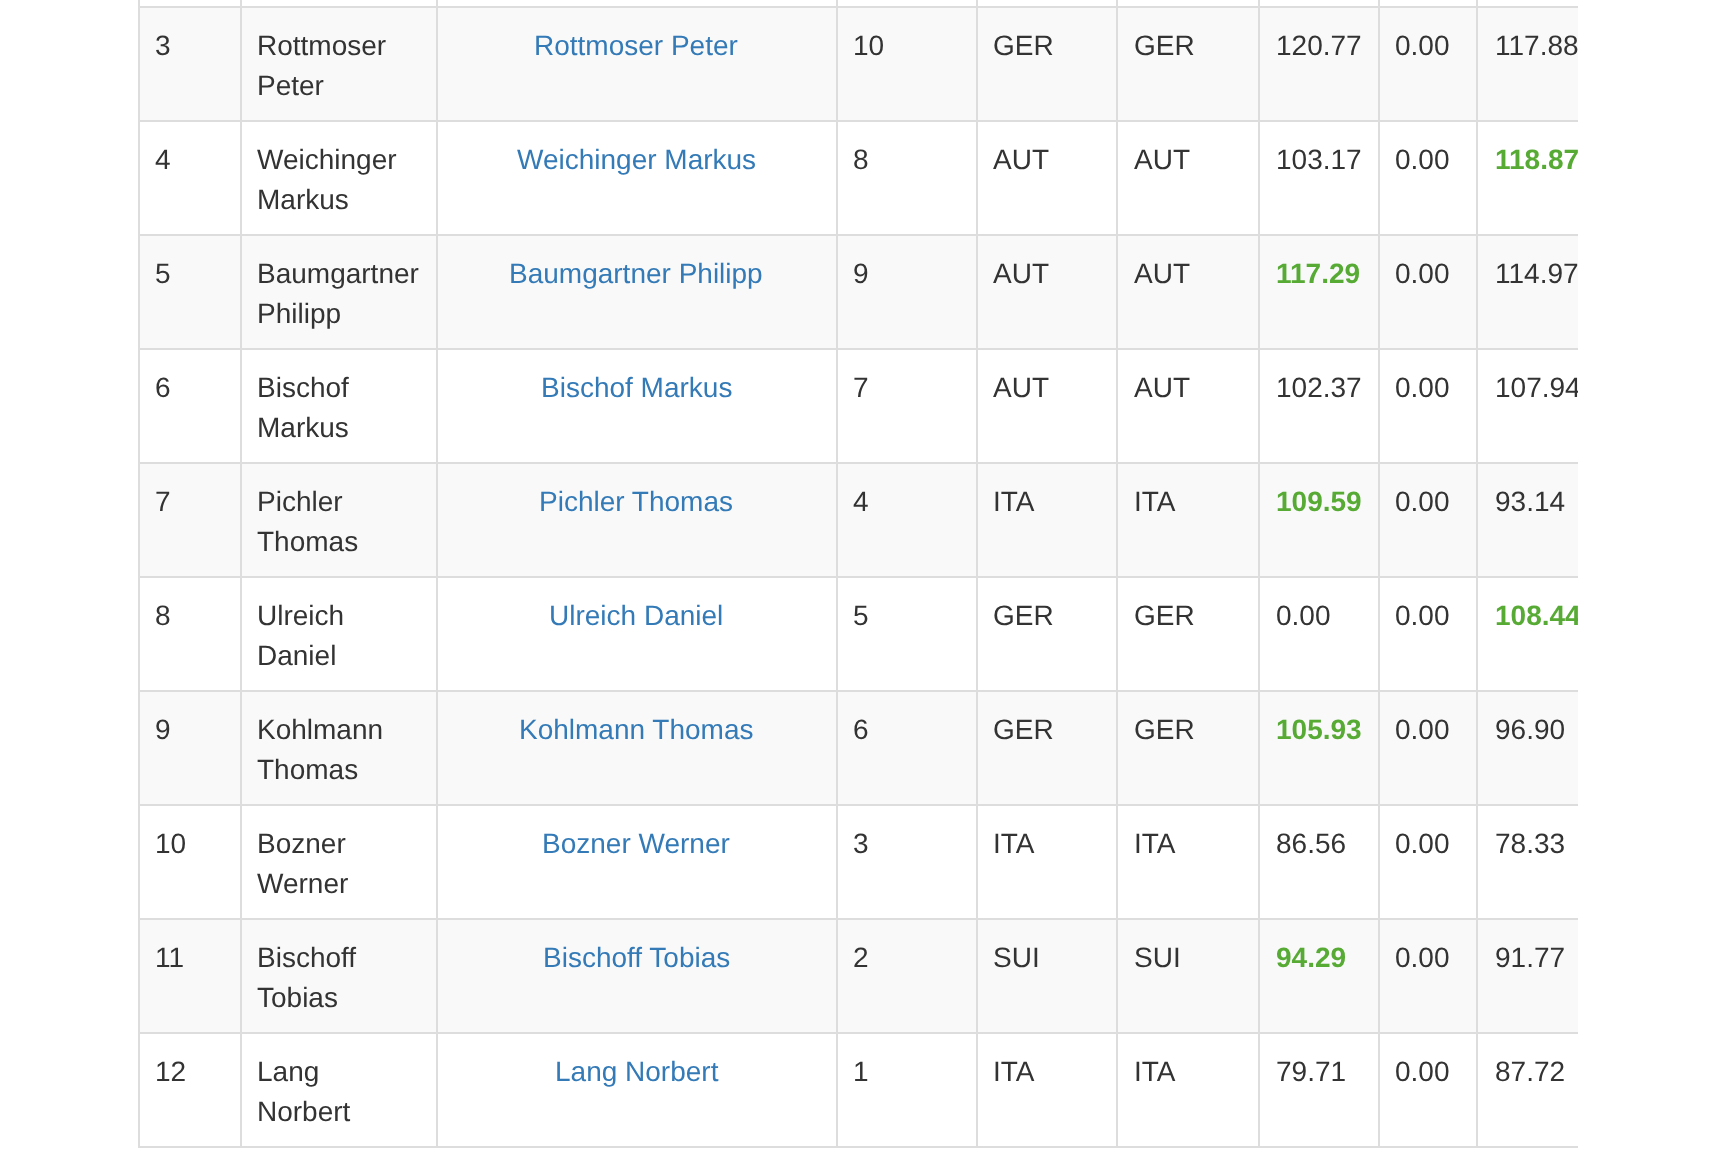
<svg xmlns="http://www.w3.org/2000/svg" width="1714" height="1153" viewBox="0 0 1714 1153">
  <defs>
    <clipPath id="clip1"><rect x="138" y="0" width="1440" height="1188"/></clipPath>
  </defs>
  <rect width="100%" height="100%" fill="rgb(255,255,255)"/>
  <rect x="138" y="1146" width="1440" height="2" fill="rgb(221,221,221)"/>
  <rect x="138" y="0" width="2" height="1148" fill="rgb(221,221,221)"/>
  <rect x="1476" y="6" width="102" height="2" fill="rgb(221,221,221)"/>
  <rect x="140" y="8" width="1438" height="112" fill="rgb(249,249,249)"/>
  <rect x="1476" y="120" width="102" height="2" fill="rgb(221,221,221)"/>
  <rect x="1476" y="234" width="102" height="2" fill="rgb(221,221,221)"/>
  <rect x="140" y="236" width="1438" height="112" fill="rgb(249,249,249)"/>
  <rect x="1476" y="348" width="102" height="2" fill="rgb(221,221,221)"/>
  <rect x="1476" y="462" width="102" height="2" fill="rgb(221,221,221)"/>
  <rect x="140" y="464" width="1438" height="112" fill="rgb(249,249,249)"/>
  <rect x="1476" y="576" width="102" height="2" fill="rgb(221,221,221)"/>
  <rect x="1476" y="690" width="102" height="2" fill="rgb(221,221,221)"/>
  <rect x="140" y="692" width="1438" height="112" fill="rgb(249,249,249)"/>
  <rect x="1476" y="804" width="102" height="2" fill="rgb(221,221,221)"/>
  <rect x="1476" y="918" width="102" height="2" fill="rgb(221,221,221)"/>
  <rect x="140" y="920" width="1438" height="112" fill="rgb(249,249,249)"/>
  <rect x="1476" y="1032" width="102" height="2" fill="rgb(221,221,221)"/>
  <rect x="1476" y="1032" width="2" height="116" fill="rgb(221,221,221)"/>
  <rect x="1378" y="1032" width="100" height="2" fill="rgb(221,221,221)"/>
  <rect x="1476" y="918" width="2" height="116" fill="rgb(221,221,221)"/>
  <rect x="1378" y="918" width="100" height="2" fill="rgb(221,221,221)"/>
  <rect x="1476" y="804" width="2" height="116" fill="rgb(221,221,221)"/>
  <rect x="1378" y="804" width="100" height="2" fill="rgb(221,221,221)"/>
  <rect x="1476" y="690" width="2" height="116" fill="rgb(221,221,221)"/>
  <rect x="1378" y="690" width="100" height="2" fill="rgb(221,221,221)"/>
  <rect x="1476" y="576" width="2" height="116" fill="rgb(221,221,221)"/>
  <rect x="1378" y="576" width="100" height="2" fill="rgb(221,221,221)"/>
  <rect x="1476" y="462" width="2" height="116" fill="rgb(221,221,221)"/>
  <rect x="1378" y="462" width="100" height="2" fill="rgb(221,221,221)"/>
  <rect x="1476" y="348" width="2" height="116" fill="rgb(221,221,221)"/>
  <rect x="1378" y="348" width="100" height="2" fill="rgb(221,221,221)"/>
  <rect x="1476" y="234" width="2" height="116" fill="rgb(221,221,221)"/>
  <rect x="1378" y="234" width="100" height="2" fill="rgb(221,221,221)"/>
  <rect x="1476" y="120" width="2" height="116" fill="rgb(221,221,221)"/>
  <rect x="1378" y="120" width="100" height="2" fill="rgb(221,221,221)"/>
  <rect x="1476" y="6" width="2" height="116" fill="rgb(221,221,221)"/>
  <rect x="1378" y="6" width="100" height="2" fill="rgb(221,221,221)"/>
  <rect x="1378" y="1032" width="2" height="116" fill="rgb(221,221,221)"/>
  <rect x="1258" y="1032" width="122" height="2" fill="rgb(221,221,221)"/>
  <rect x="1378" y="918" width="2" height="116" fill="rgb(221,221,221)"/>
  <rect x="1258" y="918" width="122" height="2" fill="rgb(221,221,221)"/>
  <rect x="1378" y="804" width="2" height="116" fill="rgb(221,221,221)"/>
  <rect x="1258" y="804" width="122" height="2" fill="rgb(221,221,221)"/>
  <rect x="1378" y="690" width="2" height="116" fill="rgb(221,221,221)"/>
  <rect x="1258" y="690" width="122" height="2" fill="rgb(221,221,221)"/>
  <rect x="1378" y="576" width="2" height="116" fill="rgb(221,221,221)"/>
  <rect x="1258" y="576" width="122" height="2" fill="rgb(221,221,221)"/>
  <rect x="1378" y="462" width="2" height="116" fill="rgb(221,221,221)"/>
  <rect x="1258" y="462" width="122" height="2" fill="rgb(221,221,221)"/>
  <rect x="1378" y="348" width="2" height="116" fill="rgb(221,221,221)"/>
  <rect x="1258" y="348" width="122" height="2" fill="rgb(221,221,221)"/>
  <rect x="1378" y="234" width="2" height="116" fill="rgb(221,221,221)"/>
  <rect x="1258" y="234" width="122" height="2" fill="rgb(221,221,221)"/>
  <rect x="1378" y="120" width="2" height="116" fill="rgb(221,221,221)"/>
  <rect x="1258" y="120" width="122" height="2" fill="rgb(221,221,221)"/>
  <rect x="1378" y="6" width="2" height="116" fill="rgb(221,221,221)"/>
  <rect x="1258" y="6" width="122" height="2" fill="rgb(221,221,221)"/>
  <rect x="1258" y="1032" width="2" height="116" fill="rgb(221,221,221)"/>
  <rect x="1116" y="1032" width="144" height="2" fill="rgb(221,221,221)"/>
  <rect x="1258" y="918" width="2" height="116" fill="rgb(221,221,221)"/>
  <rect x="1116" y="918" width="144" height="2" fill="rgb(221,221,221)"/>
  <rect x="1258" y="804" width="2" height="116" fill="rgb(221,221,221)"/>
  <rect x="1116" y="804" width="144" height="2" fill="rgb(221,221,221)"/>
  <rect x="1258" y="690" width="2" height="116" fill="rgb(221,221,221)"/>
  <rect x="1116" y="690" width="144" height="2" fill="rgb(221,221,221)"/>
  <rect x="1258" y="576" width="2" height="116" fill="rgb(221,221,221)"/>
  <rect x="1116" y="576" width="144" height="2" fill="rgb(221,221,221)"/>
  <rect x="1258" y="462" width="2" height="116" fill="rgb(221,221,221)"/>
  <rect x="1116" y="462" width="144" height="2" fill="rgb(221,221,221)"/>
  <rect x="1258" y="348" width="2" height="116" fill="rgb(221,221,221)"/>
  <rect x="1116" y="348" width="144" height="2" fill="rgb(221,221,221)"/>
  <rect x="1258" y="234" width="2" height="116" fill="rgb(221,221,221)"/>
  <rect x="1116" y="234" width="144" height="2" fill="rgb(221,221,221)"/>
  <rect x="1258" y="120" width="2" height="116" fill="rgb(221,221,221)"/>
  <rect x="1116" y="120" width="144" height="2" fill="rgb(221,221,221)"/>
  <rect x="1258" y="6" width="2" height="116" fill="rgb(221,221,221)"/>
  <rect x="1116" y="6" width="144" height="2" fill="rgb(221,221,221)"/>
  <rect x="1116" y="1032" width="2" height="116" fill="rgb(221,221,221)"/>
  <rect x="976" y="1032" width="142" height="2" fill="rgb(221,221,221)"/>
  <rect x="1116" y="918" width="2" height="116" fill="rgb(221,221,221)"/>
  <rect x="976" y="918" width="142" height="2" fill="rgb(221,221,221)"/>
  <rect x="1116" y="804" width="2" height="116" fill="rgb(221,221,221)"/>
  <rect x="976" y="804" width="142" height="2" fill="rgb(221,221,221)"/>
  <rect x="1116" y="690" width="2" height="116" fill="rgb(221,221,221)"/>
  <rect x="976" y="690" width="142" height="2" fill="rgb(221,221,221)"/>
  <rect x="1116" y="576" width="2" height="116" fill="rgb(221,221,221)"/>
  <rect x="976" y="576" width="142" height="2" fill="rgb(221,221,221)"/>
  <rect x="1116" y="462" width="2" height="116" fill="rgb(221,221,221)"/>
  <rect x="976" y="462" width="142" height="2" fill="rgb(221,221,221)"/>
  <rect x="1116" y="348" width="2" height="116" fill="rgb(221,221,221)"/>
  <rect x="976" y="348" width="142" height="2" fill="rgb(221,221,221)"/>
  <rect x="1116" y="234" width="2" height="116" fill="rgb(221,221,221)"/>
  <rect x="976" y="234" width="142" height="2" fill="rgb(221,221,221)"/>
  <rect x="1116" y="120" width="2" height="116" fill="rgb(221,221,221)"/>
  <rect x="976" y="120" width="142" height="2" fill="rgb(221,221,221)"/>
  <rect x="1116" y="6" width="2" height="116" fill="rgb(221,221,221)"/>
  <rect x="976" y="6" width="142" height="2" fill="rgb(221,221,221)"/>
  <rect x="976" y="1032" width="2" height="116" fill="rgb(221,221,221)"/>
  <rect x="836" y="1032" width="142" height="2" fill="rgb(221,221,221)"/>
  <rect x="976" y="918" width="2" height="116" fill="rgb(221,221,221)"/>
  <rect x="836" y="918" width="142" height="2" fill="rgb(221,221,221)"/>
  <rect x="976" y="804" width="2" height="116" fill="rgb(221,221,221)"/>
  <rect x="836" y="804" width="142" height="2" fill="rgb(221,221,221)"/>
  <rect x="976" y="690" width="2" height="116" fill="rgb(221,221,221)"/>
  <rect x="836" y="690" width="142" height="2" fill="rgb(221,221,221)"/>
  <rect x="976" y="576" width="2" height="116" fill="rgb(221,221,221)"/>
  <rect x="836" y="576" width="142" height="2" fill="rgb(221,221,221)"/>
  <rect x="976" y="462" width="2" height="116" fill="rgb(221,221,221)"/>
  <rect x="836" y="462" width="142" height="2" fill="rgb(221,221,221)"/>
  <rect x="976" y="348" width="2" height="116" fill="rgb(221,221,221)"/>
  <rect x="836" y="348" width="142" height="2" fill="rgb(221,221,221)"/>
  <rect x="976" y="234" width="2" height="116" fill="rgb(221,221,221)"/>
  <rect x="836" y="234" width="142" height="2" fill="rgb(221,221,221)"/>
  <rect x="976" y="120" width="2" height="116" fill="rgb(221,221,221)"/>
  <rect x="836" y="120" width="142" height="2" fill="rgb(221,221,221)"/>
  <rect x="976" y="6" width="2" height="116" fill="rgb(221,221,221)"/>
  <rect x="836" y="6" width="142" height="2" fill="rgb(221,221,221)"/>
  <rect x="836" y="1032" width="2" height="116" fill="rgb(221,221,221)"/>
  <rect x="436" y="1032" width="402" height="2" fill="rgb(221,221,221)"/>
  <rect x="836" y="918" width="2" height="116" fill="rgb(221,221,221)"/>
  <rect x="436" y="918" width="402" height="2" fill="rgb(221,221,221)"/>
  <rect x="836" y="804" width="2" height="116" fill="rgb(221,221,221)"/>
  <rect x="436" y="804" width="402" height="2" fill="rgb(221,221,221)"/>
  <rect x="836" y="690" width="2" height="116" fill="rgb(221,221,221)"/>
  <rect x="436" y="690" width="402" height="2" fill="rgb(221,221,221)"/>
  <rect x="836" y="576" width="2" height="116" fill="rgb(221,221,221)"/>
  <rect x="436" y="576" width="402" height="2" fill="rgb(221,221,221)"/>
  <rect x="836" y="462" width="2" height="116" fill="rgb(221,221,221)"/>
  <rect x="436" y="462" width="402" height="2" fill="rgb(221,221,221)"/>
  <rect x="836" y="348" width="2" height="116" fill="rgb(221,221,221)"/>
  <rect x="436" y="348" width="402" height="2" fill="rgb(221,221,221)"/>
  <rect x="836" y="234" width="2" height="116" fill="rgb(221,221,221)"/>
  <rect x="436" y="234" width="402" height="2" fill="rgb(221,221,221)"/>
  <rect x="836" y="120" width="2" height="116" fill="rgb(221,221,221)"/>
  <rect x="436" y="120" width="402" height="2" fill="rgb(221,221,221)"/>
  <rect x="836" y="6" width="2" height="116" fill="rgb(221,221,221)"/>
  <rect x="436" y="6" width="402" height="2" fill="rgb(221,221,221)"/>
  <rect x="436" y="1032" width="2" height="116" fill="rgb(221,221,221)"/>
  <rect x="240" y="1032" width="198" height="2" fill="rgb(221,221,221)"/>
  <rect x="436" y="918" width="2" height="116" fill="rgb(221,221,221)"/>
  <rect x="240" y="918" width="198" height="2" fill="rgb(221,221,221)"/>
  <rect x="436" y="804" width="2" height="116" fill="rgb(221,221,221)"/>
  <rect x="240" y="804" width="198" height="2" fill="rgb(221,221,221)"/>
  <rect x="436" y="690" width="2" height="116" fill="rgb(221,221,221)"/>
  <rect x="240" y="690" width="198" height="2" fill="rgb(221,221,221)"/>
  <rect x="436" y="576" width="2" height="116" fill="rgb(221,221,221)"/>
  <rect x="240" y="576" width="198" height="2" fill="rgb(221,221,221)"/>
  <rect x="436" y="462" width="2" height="116" fill="rgb(221,221,221)"/>
  <rect x="240" y="462" width="198" height="2" fill="rgb(221,221,221)"/>
  <rect x="436" y="348" width="2" height="116" fill="rgb(221,221,221)"/>
  <rect x="240" y="348" width="198" height="2" fill="rgb(221,221,221)"/>
  <rect x="436" y="234" width="2" height="116" fill="rgb(221,221,221)"/>
  <rect x="240" y="234" width="198" height="2" fill="rgb(221,221,221)"/>
  <rect x="436" y="120" width="2" height="116" fill="rgb(221,221,221)"/>
  <rect x="240" y="120" width="198" height="2" fill="rgb(221,221,221)"/>
  <rect x="436" y="6" width="2" height="116" fill="rgb(221,221,221)"/>
  <rect x="240" y="6" width="198" height="2" fill="rgb(221,221,221)"/>
  <rect x="240" y="1032" width="2" height="116" fill="rgb(221,221,221)"/>
  <rect x="138" y="1032" width="104" height="2" fill="rgb(221,221,221)"/>
  <rect x="240" y="918" width="2" height="116" fill="rgb(221,221,221)"/>
  <rect x="138" y="918" width="104" height="2" fill="rgb(221,221,221)"/>
  <rect x="240" y="804" width="2" height="116" fill="rgb(221,221,221)"/>
  <rect x="138" y="804" width="104" height="2" fill="rgb(221,221,221)"/>
  <rect x="240" y="690" width="2" height="116" fill="rgb(221,221,221)"/>
  <rect x="138" y="690" width="104" height="2" fill="rgb(221,221,221)"/>
  <rect x="240" y="576" width="2" height="116" fill="rgb(221,221,221)"/>
  <rect x="138" y="576" width="104" height="2" fill="rgb(221,221,221)"/>
  <rect x="240" y="462" width="2" height="116" fill="rgb(221,221,221)"/>
  <rect x="138" y="462" width="104" height="2" fill="rgb(221,221,221)"/>
  <rect x="240" y="348" width="2" height="116" fill="rgb(221,221,221)"/>
  <rect x="138" y="348" width="104" height="2" fill="rgb(221,221,221)"/>
  <rect x="240" y="234" width="2" height="116" fill="rgb(221,221,221)"/>
  <rect x="138" y="234" width="104" height="2" fill="rgb(221,221,221)"/>
  <rect x="240" y="120" width="2" height="116" fill="rgb(221,221,221)"/>
  <rect x="138" y="120" width="104" height="2" fill="rgb(221,221,221)"/>
  <rect x="240" y="6" width="2" height="116" fill="rgb(221,221,221)"/>
  <rect x="138" y="6" width="104" height="2" fill="rgb(221,221,221)"/>
  <rect x="240" y="0" width="2" height="8" fill="rgb(221,221,221)"/>
  <rect x="436" y="0" width="2" height="8" fill="rgb(221,221,221)"/>
  <rect x="836" y="0" width="2" height="8" fill="rgb(221,221,221)"/>
  <rect x="976" y="0" width="2" height="8" fill="rgb(221,221,221)"/>
  <rect x="1116" y="0" width="2" height="8" fill="rgb(221,221,221)"/>
  <rect x="1258" y="0" width="2" height="8" fill="rgb(221,221,221)"/>
  <rect x="1378" y="0" width="2" height="8" fill="rgb(221,221,221)"/>
  <rect x="1476" y="0" width="2" height="8" fill="rgb(221,221,221)"/>
  <g font-family="Liberation Sans" font-size="28" fill="rgb(51,51,51)">
    <text x="155" y="55">3</text>
    <text>
      <tspan x="257" y="55">Rottmoser</tspan>
      <tspan x="257" y="95">Peter</tspan>
    </text>
  </g>
  <text x="534" y="55" font-family="Liberation Sans" font-size="28" fill="rgb(51,122,183)">Rottmoser Peter</text>
  <g font-family="Liberation Sans" font-size="28" fill="rgb(51,51,51)">
    <text x="853" y="55">10</text>
    <text x="993" y="55">GER</text>
    <text x="1134" y="55">GER</text>
    <text x="1276" y="55">120.77</text>
    <text x="1395" y="55">0.00</text>
    <text x="1495" y="55">117.88</text>
    <text x="155" y="169">4</text>
    <text>
      <tspan x="257" y="169">Weichinger</tspan>
      <tspan x="257" y="209">Markus</tspan>
    </text>
  </g>
  <text x="517" y="169" font-family="Liberation Sans" font-size="28" fill="rgb(51,122,183)">Weichinger Markus</text>
  <g font-family="Liberation Sans" font-size="28" fill="rgb(51,51,51)">
    <text x="853" y="169">8</text>
    <text x="993" y="169">AUT</text>
    <text x="1134" y="169">AUT</text>
    <text x="1276" y="169">103.17</text>
    <text x="1395" y="169">0.00</text>
  </g>
  <text x="1495" y="169" font-family="Liberation Sans" font-size="28" font-weight="bold" fill="rgb(87,171,53)">118.87</text>
  <g font-family="Liberation Sans" font-size="28" fill="rgb(51,51,51)">
    <text x="155" y="283">5</text>
    <text>
      <tspan x="257" y="283">Baumgartner</tspan>
      <tspan x="257" y="323">Philipp</tspan>
    </text>
  </g>
  <text x="509" y="283" font-family="Liberation Sans" font-size="28" fill="rgb(51,122,183)">Baumgartner Philipp</text>
  <g font-family="Liberation Sans" font-size="28" fill="rgb(51,51,51)">
    <text x="853" y="283">9</text>
    <text x="993" y="283">AUT</text>
    <text x="1134" y="283">AUT</text>
  </g>
  <text x="1276" y="283" font-family="Liberation Sans" font-size="28" font-weight="bold" fill="rgb(87,171,53)">117.29</text>
  <g font-family="Liberation Sans" font-size="28" fill="rgb(51,51,51)">
    <text x="1395" y="283">0.00</text>
    <text x="1495" y="283">114.97</text>
    <text x="155" y="397">6</text>
    <text>
      <tspan x="257" y="397">Bischof</tspan>
      <tspan x="257" y="437">Markus</tspan>
    </text>
  </g>
  <text x="541" y="397" font-family="Liberation Sans" font-size="28" fill="rgb(51,122,183)">Bischof Markus</text>
  <g font-family="Liberation Sans" font-size="28" fill="rgb(51,51,51)">
    <text x="853" y="397">7</text>
    <text x="993" y="397">AUT</text>
    <text x="1134" y="397">AUT</text>
    <text x="1276" y="397">102.37</text>
    <text x="1395" y="397">0.00</text>
  </g>
  <g clip-path="url(#clip1)">
    <text x="1495" y="397" font-family="Liberation Sans" font-size="28" fill="rgb(51,51,51)">107.94</text>
  </g>
  <g font-family="Liberation Sans" font-size="28" fill="rgb(51,51,51)">
    <text x="155" y="511">7</text>
    <text>
      <tspan x="257" y="511">Pichler</tspan>
      <tspan x="257" y="551">Thomas</tspan>
    </text>
  </g>
  <text x="539" y="511" font-family="Liberation Sans" font-size="28" fill="rgb(51,122,183)">Pichler Thomas</text>
  <g font-family="Liberation Sans" font-size="28" fill="rgb(51,51,51)">
    <text x="853" y="511">4</text>
    <text x="993" y="511">ITA</text>
    <text x="1134" y="511">ITA</text>
  </g>
  <text x="1276" y="511" font-family="Liberation Sans" font-size="28" font-weight="bold" fill="rgb(87,171,53)">109.59</text>
  <g font-family="Liberation Sans" font-size="28" fill="rgb(51,51,51)">
    <text x="1395" y="511">0.00</text>
    <text x="1495" y="511">93.14</text>
    <text x="155" y="625">8</text>
    <text>
      <tspan x="257" y="625">Ulreich</tspan>
      <tspan x="257" y="665">Daniel</tspan>
    </text>
  </g>
  <text x="549" y="625" font-family="Liberation Sans" font-size="28" fill="rgb(51,122,183)">Ulreich Daniel</text>
  <g font-family="Liberation Sans" font-size="28" fill="rgb(51,51,51)">
    <text x="853" y="625">5</text>
    <text x="993" y="625">GER</text>
    <text x="1134" y="625">GER</text>
    <text x="1276" y="625">0.00</text>
    <text x="1395" y="625">0.00</text>
  </g>
  <g clip-path="url(#clip1)">
    <text x="1495" y="625" font-family="Liberation Sans" font-size="28" font-weight="bold" fill="rgb(87,171,53)">108.44</text>
  </g>
  <g font-family="Liberation Sans" font-size="28" fill="rgb(51,51,51)">
    <text x="155" y="739">9</text>
    <text>
      <tspan x="257" y="739">Kohlmann</tspan>
      <tspan x="257" y="779">Thomas</tspan>
    </text>
  </g>
  <text x="519" y="739" font-family="Liberation Sans" font-size="28" fill="rgb(51,122,183)">Kohlmann Thomas</text>
  <g font-family="Liberation Sans" font-size="28" fill="rgb(51,51,51)">
    <text x="853" y="739">6</text>
    <text x="993" y="739">GER</text>
    <text x="1134" y="739">GER</text>
  </g>
  <text x="1276" y="739" font-family="Liberation Sans" font-size="28" font-weight="bold" fill="rgb(87,171,53)">105.93</text>
  <g font-family="Liberation Sans" font-size="28" fill="rgb(51,51,51)">
    <text x="1395" y="739">0.00</text>
    <text x="1495" y="739">96.90</text>
    <text x="155" y="853">10</text>
    <text>
      <tspan x="257" y="853">Bozner</tspan>
      <tspan x="257" y="893">Werner</tspan>
    </text>
  </g>
  <text x="542" y="853" font-family="Liberation Sans" font-size="28" fill="rgb(51,122,183)">Bozner Werner</text>
  <g font-family="Liberation Sans" font-size="28" fill="rgb(51,51,51)">
    <text x="853" y="853">3</text>
    <text x="993" y="853">ITA</text>
    <text x="1134" y="853">ITA</text>
    <text x="1276" y="853">86.56</text>
    <text x="1395" y="853">0.00</text>
    <text x="1495" y="853">78.33</text>
    <text x="155" y="967">11</text>
    <text>
      <tspan x="257" y="967">Bischoff</tspan>
      <tspan x="257" y="1007">Tobias</tspan>
    </text>
  </g>
  <text x="543" y="967" font-family="Liberation Sans" font-size="28" fill="rgb(51,122,183)">Bischoff Tobias</text>
  <g font-family="Liberation Sans" font-size="28" fill="rgb(51,51,51)">
    <text x="853" y="967">2</text>
    <text x="993" y="967">SUI</text>
    <text x="1134" y="967">SUI</text>
  </g>
  <text x="1276" y="967" font-family="Liberation Sans" font-size="28" font-weight="bold" fill="rgb(87,171,53)">94.29</text>
  <g font-family="Liberation Sans" font-size="28" fill="rgb(51,51,51)">
    <text x="1395" y="967">0.00</text>
    <text x="1495" y="967">91.77</text>
    <text x="155" y="1081">12</text>
    <text>
      <tspan x="257" y="1081">Lang</tspan>
      <tspan x="257" y="1121">Norbert</tspan>
    </text>
  </g>
  <text x="555" y="1081" font-family="Liberation Sans" font-size="28" fill="rgb(51,122,183)">Lang Norbert</text>
  <g font-family="Liberation Sans" font-size="28" fill="rgb(51,51,51)">
    <text x="853" y="1081">1</text>
    <text x="993" y="1081">ITA</text>
    <text x="1134" y="1081">ITA</text>
    <text x="1276" y="1081">79.71</text>
    <text x="1395" y="1081">0.00</text>
    <text x="1495" y="1081">87.72</text>
  </g>
</svg>
